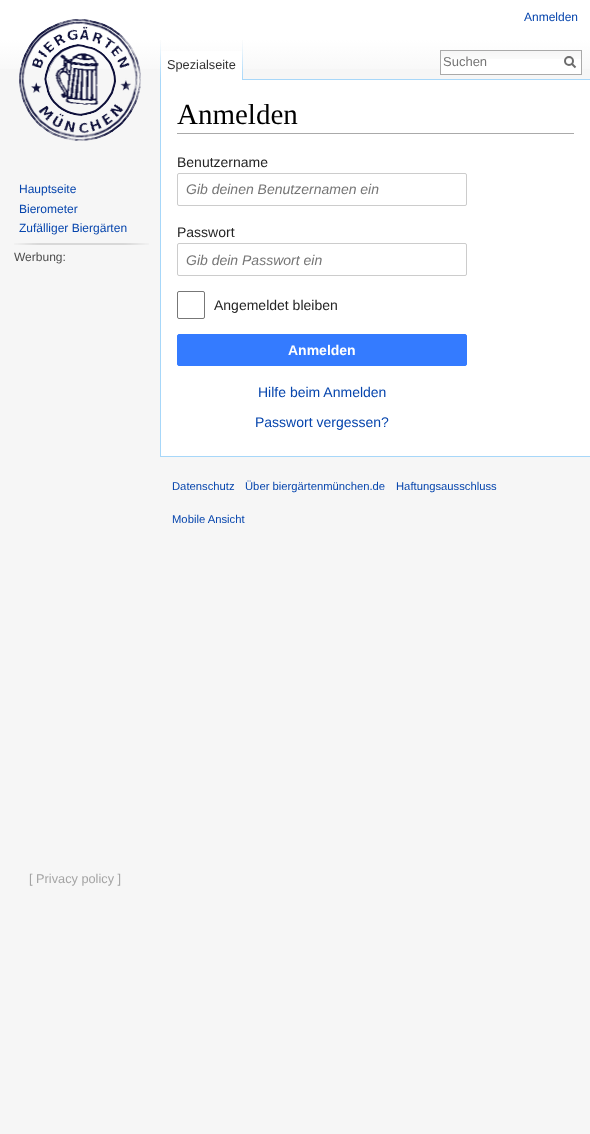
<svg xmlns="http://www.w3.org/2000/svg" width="590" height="1134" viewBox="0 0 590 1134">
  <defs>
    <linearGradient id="g1" gradientUnits="userSpaceOnUse" x1="295" y1="0" x2="295" y2="80"><stop offset="0.5" stop-color="rgb(255,255,255)"/><stop offset="1" stop-color="rgb(246,246,246)"/></linearGradient>
  </defs>
  <rect width="100%" height="100%" fill="rgb(246,246,246)"/>
  <rect x="0" y="0" width="590" height="69" fill="url(#g1)"/>
  <text x="524" y="21" font-family="Liberation Sans" font-size="12" fill="rgb(6,69,173)">Anmelden</text>
  <image x="160" y="40" width="1" height="39" href="pic1.png"/>
  <rect x="161" y="51" width="81" height="29" fill="rgb(255,255,255)"/>
  <image x="242" y="40" width="1" height="40" href="pic2.png"/>
  <text x="167" y="69" font-family="Liberation Sans" font-size="12.75" fill="rgb(51,51,51)">Spezialseite</text>
  <rect x="441" y="59" width="140" height="15" fill="rgb(255,255,255)"/>
  <image x="441" y="51" width="140" height="8" href="pic3.png"/>
  <rect x="440.5" y="50.5" width="141" height="24" fill="none" stroke="rgb(170,170,170)"/>
  <text x="443" y="66" font-family="Liberation Sans" font-size="13" fill="rgb(117,117,117)">Suchen</text>
  <path d="M575.5 67.5L571.5 63.5" fill="none" stroke="rgb(108,108,108)" stroke-width="2"/>
  <circle cx="569" cy="61" r="4" fill="none" stroke="rgb(108,108,108)" stroke-width="2"/>
  <image x="19" y="19" width="122" height="122" href="pic4.png"/>
  <g font-family="Liberation Sans" font-size="12" fill="rgb(6,69,173)">
    <text>
      <tspan x="19" y="193">Hauptseite</tspan>
      <tspan x="19" y="213">Bierometer</tspan>
      <tspan x="19" y="232">Zufälliger Biergärten</tspan>
    </text>
  </g>
  <image x="14" y="243" width="135" height="2" href="pic5.png"/>
  <text x="14" y="261" font-family="Liberation Sans" font-size="12" fill="rgb(77,77,77)">Werbung:</text>
  <text x="29" y="883" font-family="Liberation Sans" font-size="12.75" fill="rgb(164,164,164)">[ Privacy policy ]</text>
  <rect x="161" y="80" width="429" height="376" fill="rgb(255,255,255)"/>
  <rect x="243" y="79" width="347" height="1" fill="rgb(167,215,249)"/>
  <rect x="160" y="456" width="430" height="1" fill="rgb(167,215,249)"/>
  <rect x="160" y="79" width="1" height="378" fill="rgb(167,215,249)"/>
  <rect x="177" y="133" width="397" height="1" fill="rgb(170,170,170)"/>
  <text x="177" y="124" font-family="Liberation Serif" font-size="29" fill="rgb(0,0,0)">Anmelden</text>
  <text x="177" y="167" font-family="Liberation Sans" font-size="14" fill="rgb(37,37,37)">Benutzername</text>
  <rect x="177.5" y="173.5" width="289" height="32" rx="1.5" fill="none" stroke="rgb(204,204,204)"/>
  <text x="186" y="194" font-family="Liberation Sans" font-size="14" font-style="italic" fill="rgb(117,117,117)">Gib deinen Benutzernamen ein</text>
  <text x="177" y="237" font-family="Liberation Sans" font-size="14" fill="rgb(37,37,37)">Passwort</text>
  <rect x="177.5" y="243.5" width="289" height="32" rx="1.5" fill="none" stroke="rgb(204,204,204)"/>
  <text x="186" y="265" font-family="Liberation Sans" font-size="14" font-style="italic" fill="rgb(117,117,117)">Gib dein Passwort ein</text>
  <rect x="177.5" y="291.5" width="27" height="27" rx="1.5" fill="none" stroke="rgb(119,119,119)"/>
  <text x="214" y="310" font-family="Liberation Sans" font-size="14" fill="rgb(37,37,37)">Angemeldet bleiben</text>
  <rect x="177.5" y="334.5" width="289" height="31" rx="1.5" fill="rgb(52,123,255)" stroke="rgb(52,123,255)"/>
  <text x="288" y="355" font-family="Liberation Sans" font-size="14" font-weight="bold" fill="rgb(255,255,255)">Anmelden</text>
  <g font-family="Liberation Sans" font-size="14" fill="rgb(6,69,173)">
    <text x="258" y="397">Hilfe beim Anmelden</text>
    <text x="255" y="427">Passwort vergessen?</text>
  </g>
  <g font-family="Liberation Sans" font-size="11.25" fill="rgb(6,69,173)">
    <text x="172" y="490">Datenschutz</text>
    <text x="245" y="490">Über biergärtenmünchen.de</text>
    <text x="396" y="490">Haftungsausschluss</text>
    <text x="172" y="523">Mobile Ansicht</text>
  </g>
</svg>
